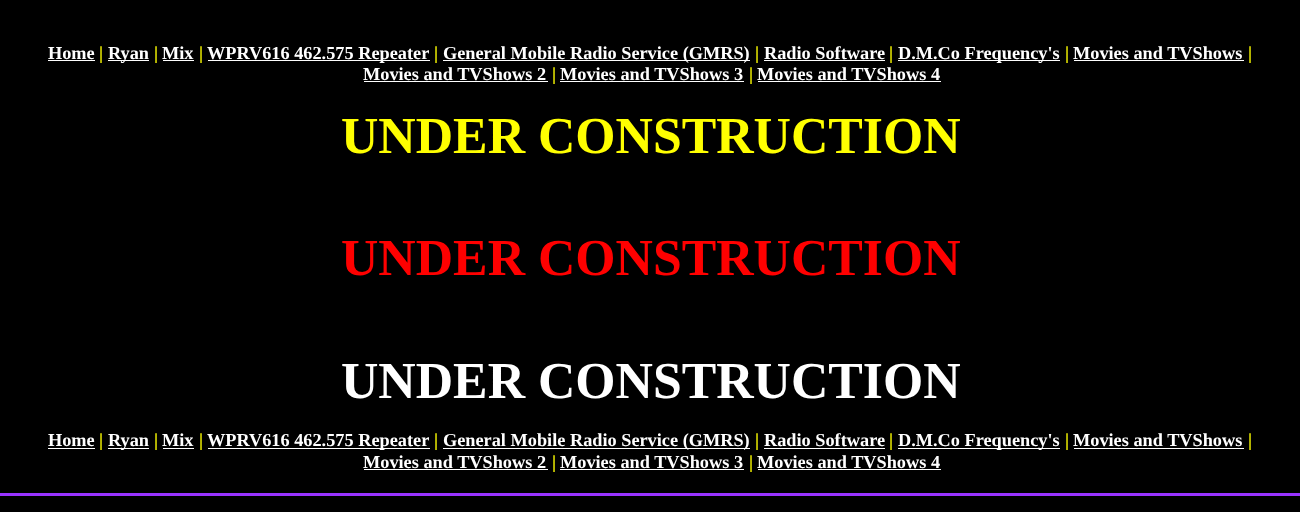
<svg xmlns="http://www.w3.org/2000/svg" width="1300" height="512" viewBox="0 0 1300 512">
  <rect width="100%" height="100%" fill="rgb(0,0,0)"/>
  <text x="48" y="59" font-family="Liberation Serif" font-size="18.3" font-weight="bold" fill="rgb(255,255,255)">Home</text>
  <rect x="48" y="60" width="47" height="1" fill="rgb(255,255,255)"/>
  <text x="99" y="59" font-family="Liberation Serif" font-size="18.3" font-weight="bold" fill="rgb(255,255,0)">|</text>
  <rect x="108" y="60" width="41" height="1" fill="rgb(255,255,255)"/>
  <text x="108" y="59" font-family="Liberation Serif" font-size="18.3" font-weight="bold" fill="rgb(255,255,255)">Ryan</text>
  <text x="154" y="59" font-family="Liberation Serif" font-size="18.3" font-weight="bold" fill="rgb(255,255,0)">|</text>
  <text x="162" y="59" font-family="Liberation Serif" font-size="18.3" font-weight="bold" fill="rgb(255,255,255)">Mix</text>
  <rect x="163" y="60" width="31" height="1" fill="rgb(255,255,255)"/>
  <text x="199" y="59" font-family="Liberation Serif" font-size="18.3" font-weight="bold" fill="rgb(255,255,0)">|</text>
  <rect x="208" y="60" width="222" height="1" fill="rgb(255,255,255)"/>
  <text x="207" y="59" font-family="Liberation Serif" font-size="18.3" font-weight="bold" fill="rgb(255,255,255)">WPRV616 462.575 Repeater</text>
  <text x="434" y="59" font-family="Liberation Serif" font-size="18.3" font-weight="bold" fill="rgb(255,255,0)">|</text>
  <rect x="443" y="60" width="307" height="1" fill="rgb(255,255,255)"/>
  <text x="443" y="59" font-family="Liberation Serif" font-size="18.3" font-weight="bold" fill="rgb(255,255,255)">General Mobile Radio Service (GMRS)</text>
  <text x="755" y="59" font-family="Liberation Serif" font-size="18.3" font-weight="bold" fill="rgb(255,255,0)">|</text>
  <text x="764" y="59" font-family="Liberation Serif" font-size="18.3" font-weight="bold" fill="rgb(255,255,255)">Radio Software</text>
  <rect x="764" y="60" width="121" height="1" fill="rgb(255,255,255)"/>
  <text x="889" y="59" font-family="Liberation Serif" font-size="18.3" font-weight="bold" fill="rgb(255,255,0)">|</text>
  <rect x="898" y="60" width="162" height="1" fill="rgb(255,255,255)"/>
  <text x="898" y="59" font-family="Liberation Serif" font-size="18.3" font-weight="bold" fill="rgb(255,255,255)">D.M.Co Frequency's</text>
  <text x="1065" y="59" font-family="Liberation Serif" font-size="18.3" font-weight="bold" fill="rgb(255,255,0)">|</text>
  <text x="1073" y="59" font-family="Liberation Serif" font-size="18.3" font-weight="bold" fill="rgb(255,255,255)">Movies and TVShows</text>
  <rect x="1074" y="60" width="170" height="1" fill="rgb(255,255,255)"/>
  <text x="1248" y="59" font-family="Liberation Serif" font-size="18.3" font-weight="bold" fill="rgb(255,255,0)">|</text>
  <text x="363" y="80" font-family="Liberation Serif" font-size="18.3" font-weight="bold" fill="rgb(255,255,255)">Movies and TVShows 2</text>
  <rect x="364" y="81" width="184" height="1" fill="rgb(255,255,255)"/>
  <text x="552" y="80" font-family="Liberation Serif" font-size="18.3" font-weight="bold" fill="rgb(255,255,0)">|</text>
  <text x="560" y="80" font-family="Liberation Serif" font-size="18.3" font-weight="bold" fill="rgb(255,255,255)">Movies and TVShows 3</text>
  <rect x="560" y="81" width="184" height="1" fill="rgb(255,255,255)"/>
  <text x="749" y="80" font-family="Liberation Serif" font-size="18.3" font-weight="bold" fill="rgb(255,255,0)">|</text>
  <text x="757" y="80" font-family="Liberation Serif" font-size="18.3" font-weight="bold" fill="rgb(255,255,255)">Movies and TVShows 4</text>
  <rect x="758" y="81" width="183" height="1" fill="rgb(255,255,255)"/>
  <text x="341" y="153" font-family="Liberation Serif" font-size="51.75" font-weight="bold" fill="rgb(255,255,0)">UNDER CONSTRUCTION</text>
  <text x="341" y="275" font-family="Liberation Serif" font-size="51.75" font-weight="bold" fill="rgb(255,0,0)">UNDER CONSTRUCTION</text>
  <text x="341" y="398" font-family="Liberation Serif" font-size="51.75" font-weight="bold" fill="rgb(255,255,255)">UNDER CONSTRUCTION</text>
  <text x="48" y="446" font-family="Liberation Serif" font-size="18.3" font-weight="bold" fill="rgb(255,255,255)">Home</text>
  <rect x="48" y="448" width="47" height="1" fill="rgb(255,255,255)"/>
  <text x="99" y="446" font-family="Liberation Serif" font-size="18.3" font-weight="bold" fill="rgb(255,255,0)">|</text>
  <rect x="108" y="448" width="41" height="1" fill="rgb(255,255,255)"/>
  <text x="108" y="446" font-family="Liberation Serif" font-size="18.3" font-weight="bold" fill="rgb(255,255,255)">Ryan</text>
  <text x="154" y="446" font-family="Liberation Serif" font-size="18.3" font-weight="bold" fill="rgb(255,255,0)">|</text>
  <text x="162" y="446" font-family="Liberation Serif" font-size="18.3" font-weight="bold" fill="rgb(255,255,255)">Mix</text>
  <rect x="163" y="448" width="31" height="1" fill="rgb(255,255,255)"/>
  <text x="199" y="446" font-family="Liberation Serif" font-size="18.3" font-weight="bold" fill="rgb(255,255,0)">|</text>
  <rect x="208" y="448" width="222" height="1" fill="rgb(255,255,255)"/>
  <text x="207" y="446" font-family="Liberation Serif" font-size="18.3" font-weight="bold" fill="rgb(255,255,255)">WPRV616 462.575 Repeater</text>
  <text x="434" y="446" font-family="Liberation Serif" font-size="18.3" font-weight="bold" fill="rgb(255,255,0)">|</text>
  <rect x="443" y="448" width="307" height="1" fill="rgb(255,255,255)"/>
  <text x="443" y="446" font-family="Liberation Serif" font-size="18.3" font-weight="bold" fill="rgb(255,255,255)">General Mobile Radio Service (GMRS)</text>
  <text x="755" y="446" font-family="Liberation Serif" font-size="18.3" font-weight="bold" fill="rgb(255,255,0)">|</text>
  <text x="764" y="446" font-family="Liberation Serif" font-size="18.3" font-weight="bold" fill="rgb(255,255,255)">Radio Software</text>
  <rect x="764" y="448" width="121" height="1" fill="rgb(255,255,255)"/>
  <text x="889" y="446" font-family="Liberation Serif" font-size="18.3" font-weight="bold" fill="rgb(255,255,0)">|</text>
  <rect x="898" y="448" width="162" height="1" fill="rgb(255,255,255)"/>
  <text x="898" y="446" font-family="Liberation Serif" font-size="18.3" font-weight="bold" fill="rgb(255,255,255)">D.M.Co Frequency's</text>
  <text x="1065" y="446" font-family="Liberation Serif" font-size="18.3" font-weight="bold" fill="rgb(255,255,0)">|</text>
  <text x="1073" y="446" font-family="Liberation Serif" font-size="18.3" font-weight="bold" fill="rgb(255,255,255)">Movies and TVShows</text>
  <rect x="1074" y="448" width="170" height="1" fill="rgb(255,255,255)"/>
  <text x="1248" y="446" font-family="Liberation Serif" font-size="18.3" font-weight="bold" fill="rgb(255,255,0)">|</text>
  <text x="363" y="468" font-family="Liberation Serif" font-size="18.3" font-weight="bold" fill="rgb(255,255,255)">Movies and TVShows 2</text>
  <rect x="364" y="469" width="184" height="1" fill="rgb(255,255,255)"/>
  <text x="552" y="468" font-family="Liberation Serif" font-size="18.3" font-weight="bold" fill="rgb(255,255,0)">|</text>
  <text x="560" y="468" font-family="Liberation Serif" font-size="18.3" font-weight="bold" fill="rgb(255,255,255)">Movies and TVShows 3</text>
  <rect x="560" y="469" width="184" height="1" fill="rgb(255,255,255)"/>
  <text x="749" y="468" font-family="Liberation Serif" font-size="18.3" font-weight="bold" fill="rgb(255,255,0)">|</text>
  <text x="757" y="468" font-family="Liberation Serif" font-size="18.3" font-weight="bold" fill="rgb(255,255,255)">Movies and TVShows 4</text>
  <rect x="758" y="469" width="183" height="1" fill="rgb(255,255,255)"/>
  <rect x="0" y="493" width="1300" height="3" fill="rgb(153,51,255)"/>
</svg>
